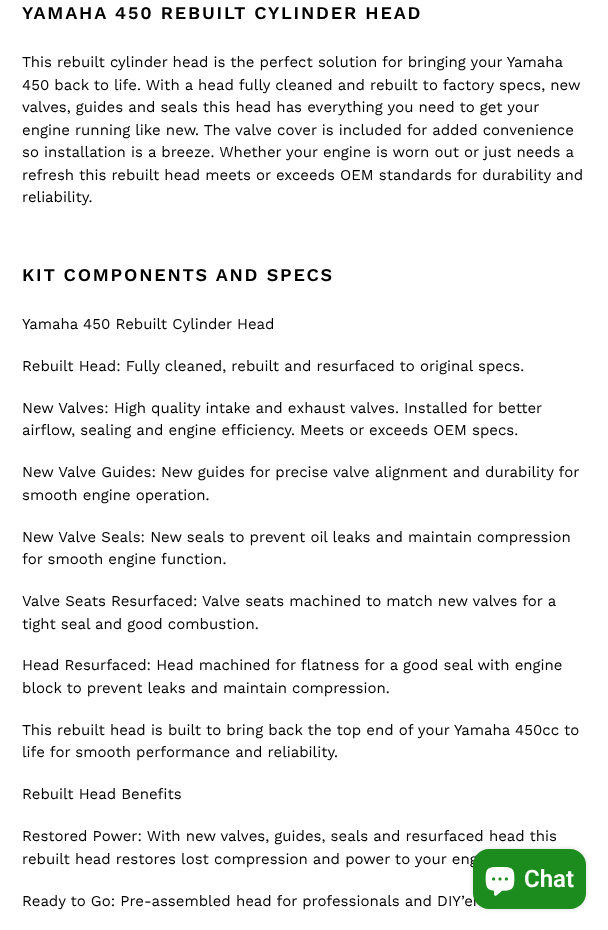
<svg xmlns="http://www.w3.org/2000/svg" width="608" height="930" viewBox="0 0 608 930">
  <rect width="100%" height="100%" fill="rgb(255,255,255)"/>
  <text x="22" y="19" font-family="Work Sans" font-size="18" font-weight="600" letter-spacing="1.8" fill="rgb(0,0,0)">YAMAHA 450 REBUILT CYLINDER HEAD</text>
  <g font-family="Work Sans" font-size="15" fill="rgb(0,0,0)">
    <text>
      <tspan x="22" y="67">This rebuilt cylinder head is the perfect solution for bringing your Yamaha</tspan>
      <tspan x="22" y="90">450 back to life. With a head fully cleaned and rebuilt to factory specs, new</tspan>
      <tspan x="22" y="112">valves, guides and seals this head has everything you need to get your</tspan>
      <tspan x="22" y="135">engine running like new. The valve cover is included for added convenience</tspan>
      <tspan x="22" y="157">so installation is a breeze. Whether your engine is worn out or just needs a</tspan>
      <tspan x="22" y="180">refresh this rebuilt head meets or exceeds OEM standards for durability and</tspan>
      <tspan x="22" y="202">reliability.</tspan>
    </text>
  </g>
  <text x="22" y="281" font-family="Work Sans" font-size="18" font-weight="600" letter-spacing="1.8" fill="rgb(0,0,0)">KIT COMPONENTS AND SPECS</text>
  <g font-family="Work Sans" font-size="15" fill="rgb(0,0,0)">
    <text x="22" y="329">Yamaha 450 Rebuilt Cylinder Head</text>
    <text x="22" y="371">Rebuilt Head: Fully cleaned, rebuilt and resurfaced to original specs.</text>
    <text>
      <tspan x="22" y="413">New Valves: High quality intake and exhaust valves. Installed for better</tspan>
      <tspan x="22" y="435">airflow, sealing and engine efficiency. Meets or exceeds OEM specs.</tspan>
    </text>
    <text>
      <tspan x="22" y="477">New Valve Guides: New guides for precise valve alignment and durability for</tspan>
      <tspan x="22" y="500">smooth engine operation.</tspan>
    </text>
    <text>
      <tspan x="22" y="542">New Valve Seals: New seals to prevent oil leaks and maintain compression</tspan>
      <tspan x="22" y="564">for smooth engine function.</tspan>
    </text>
    <text>
      <tspan x="22" y="606">Valve Seats Resurfaced: Valve seats machined to match new valves for a</tspan>
      <tspan x="22" y="629">tight seal and good combustion.</tspan>
    </text>
    <text>
      <tspan x="22" y="670">Head Resurfaced: Head machined for flatness for a good seal with engine</tspan>
      <tspan x="22" y="693">block to prevent leaks and maintain compression.</tspan>
    </text>
    <text>
      <tspan x="22" y="735">This rebuilt head is built to bring back the top end of your Yamaha 450cc to</tspan>
      <tspan x="22" y="757">life for smooth performance and reliability.</tspan>
    </text>
    <text x="22" y="799">Rebuilt Head Benefits</text>
    <text>
      <tspan x="22" y="841">Restored Power: With new valves, guides, seals and resurfaced head this</tspan>
      <tspan x="22" y="864">rebuilt head restores lost compression and power to your eng</tspan>
    </text>
    <text x="22" y="906">Ready to Go: Pre-assembled head for professionals and DIY’er</text>
  </g>
  <rect x="473" y="849" width="113" height="60" rx="16" fill="rgba(0,0,0,0.15)" filter="blur(2.5px)"/>
  <rect x="473" y="849" width="113" height="60" rx="16" fill="rgb(27,140,29)"/>
  <image x="485" y="867" width="30" height="29" href="pic1.png"/>
  <text x="524" y="887" font-family="Roboto" font-size="24" font-weight="600" fill="rgb(255,255,255)">Chat</text>
</svg>
